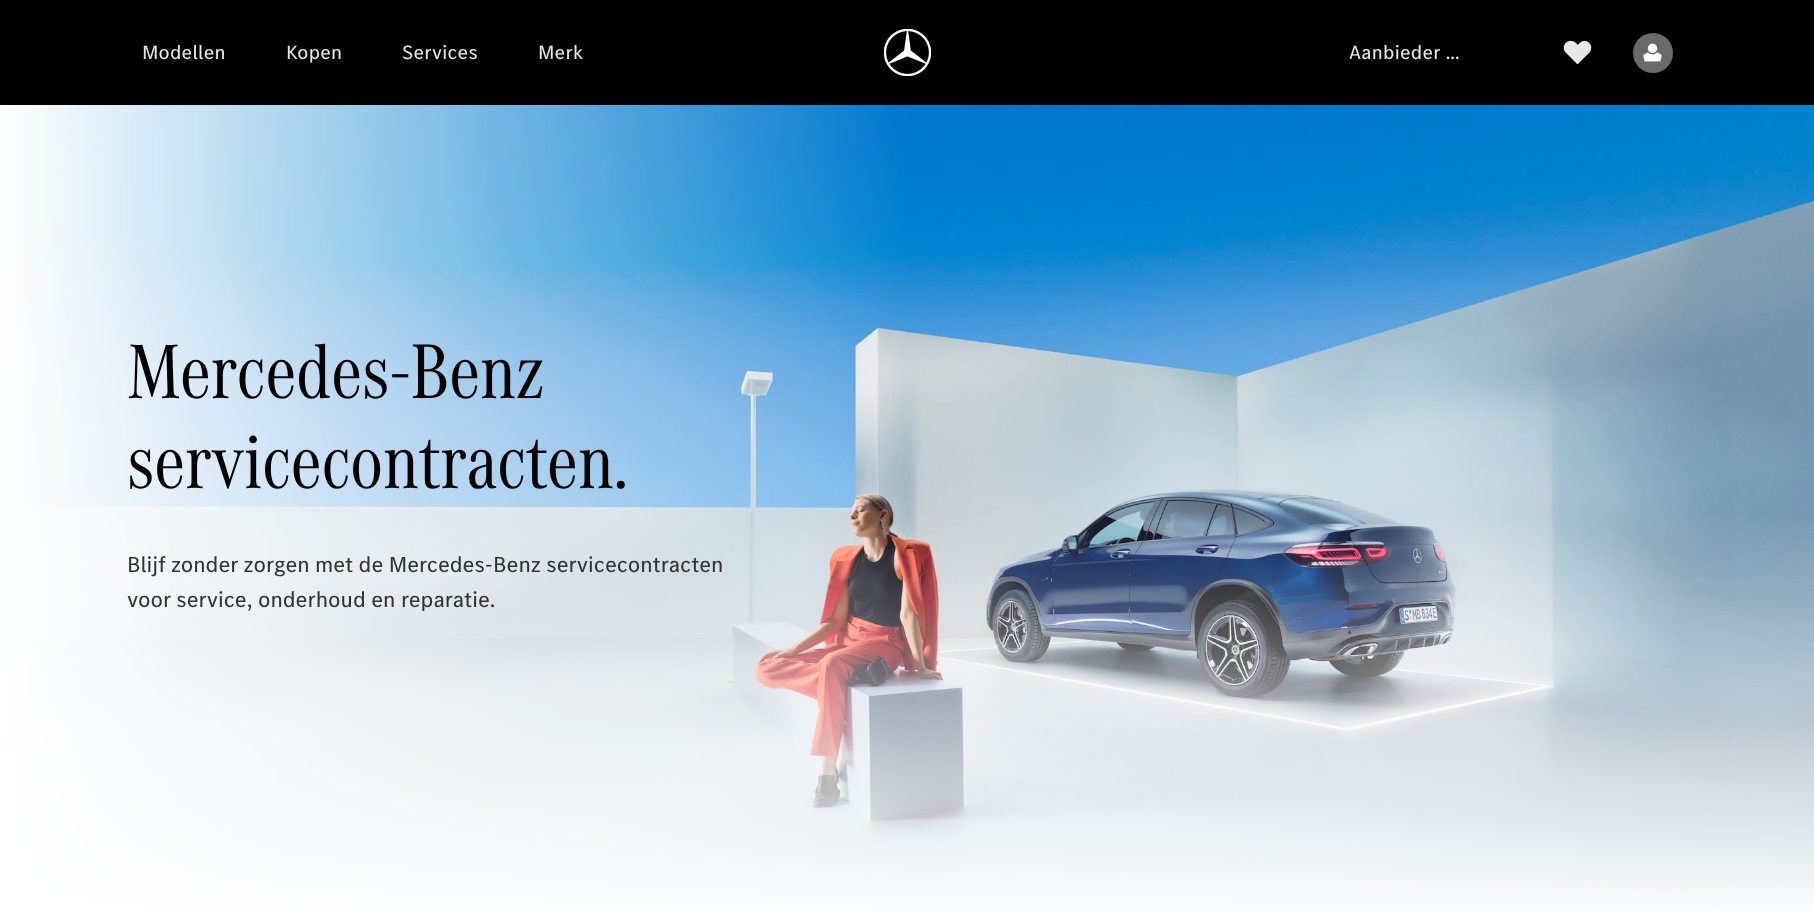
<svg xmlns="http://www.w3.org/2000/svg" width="1814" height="912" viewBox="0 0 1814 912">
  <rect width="100%" height="100%" fill="rgb(0,0,0)"/>
  <g font-family="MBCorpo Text" font-size="20" letter-spacing="0.25" fill="rgb(232,232,232)">
    <text x="142" y="59">Modellen</text>
    <text x="286" y="59">Kopen</text>
    <text x="402" y="59">Services</text>
    <text x="538" y="59">Merk</text>
  </g>
  <image x="884" y="29" width="47" height="47" href="pic1.png"/>
  <text x="1349" y="59" font-family="MBCorpo Text" font-size="20" letter-spacing="0.25" fill="rgb(232,232,232)">Aanbieder …</text>
  <image x="1563" y="40" width="29" height="25" href="pic2.png"/>
  <circle cx="1653" cy="53" r="20" fill="rgb(105,105,105)"/>
  <image x="1643" y="43" width="19" height="19" href="pic3.png"/>
  <image x="0" y="105" width="1814" height="807" href="pic4.png"/>
  <g font-family="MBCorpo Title" font-size="80" fill="rgb(0,0,0)">
    <text>
      <tspan x="127" y="398">Mercedes-Benz</tspan>
      <tspan x="127" y="488">servicecontracten.</tspan>
    </text>
  </g>
  <g font-family="MBCorpo Text" font-size="22.5" fill="rgb(51,51,51)">
    <text>
      <tspan x="127" y="572">Blijf zonder zorgen met de Mercedes-Benz servicecontracten</tspan>
      <tspan x="127" y="607">voor service, onderhoud en reparatie.</tspan>
    </text>
  </g>
</svg>
